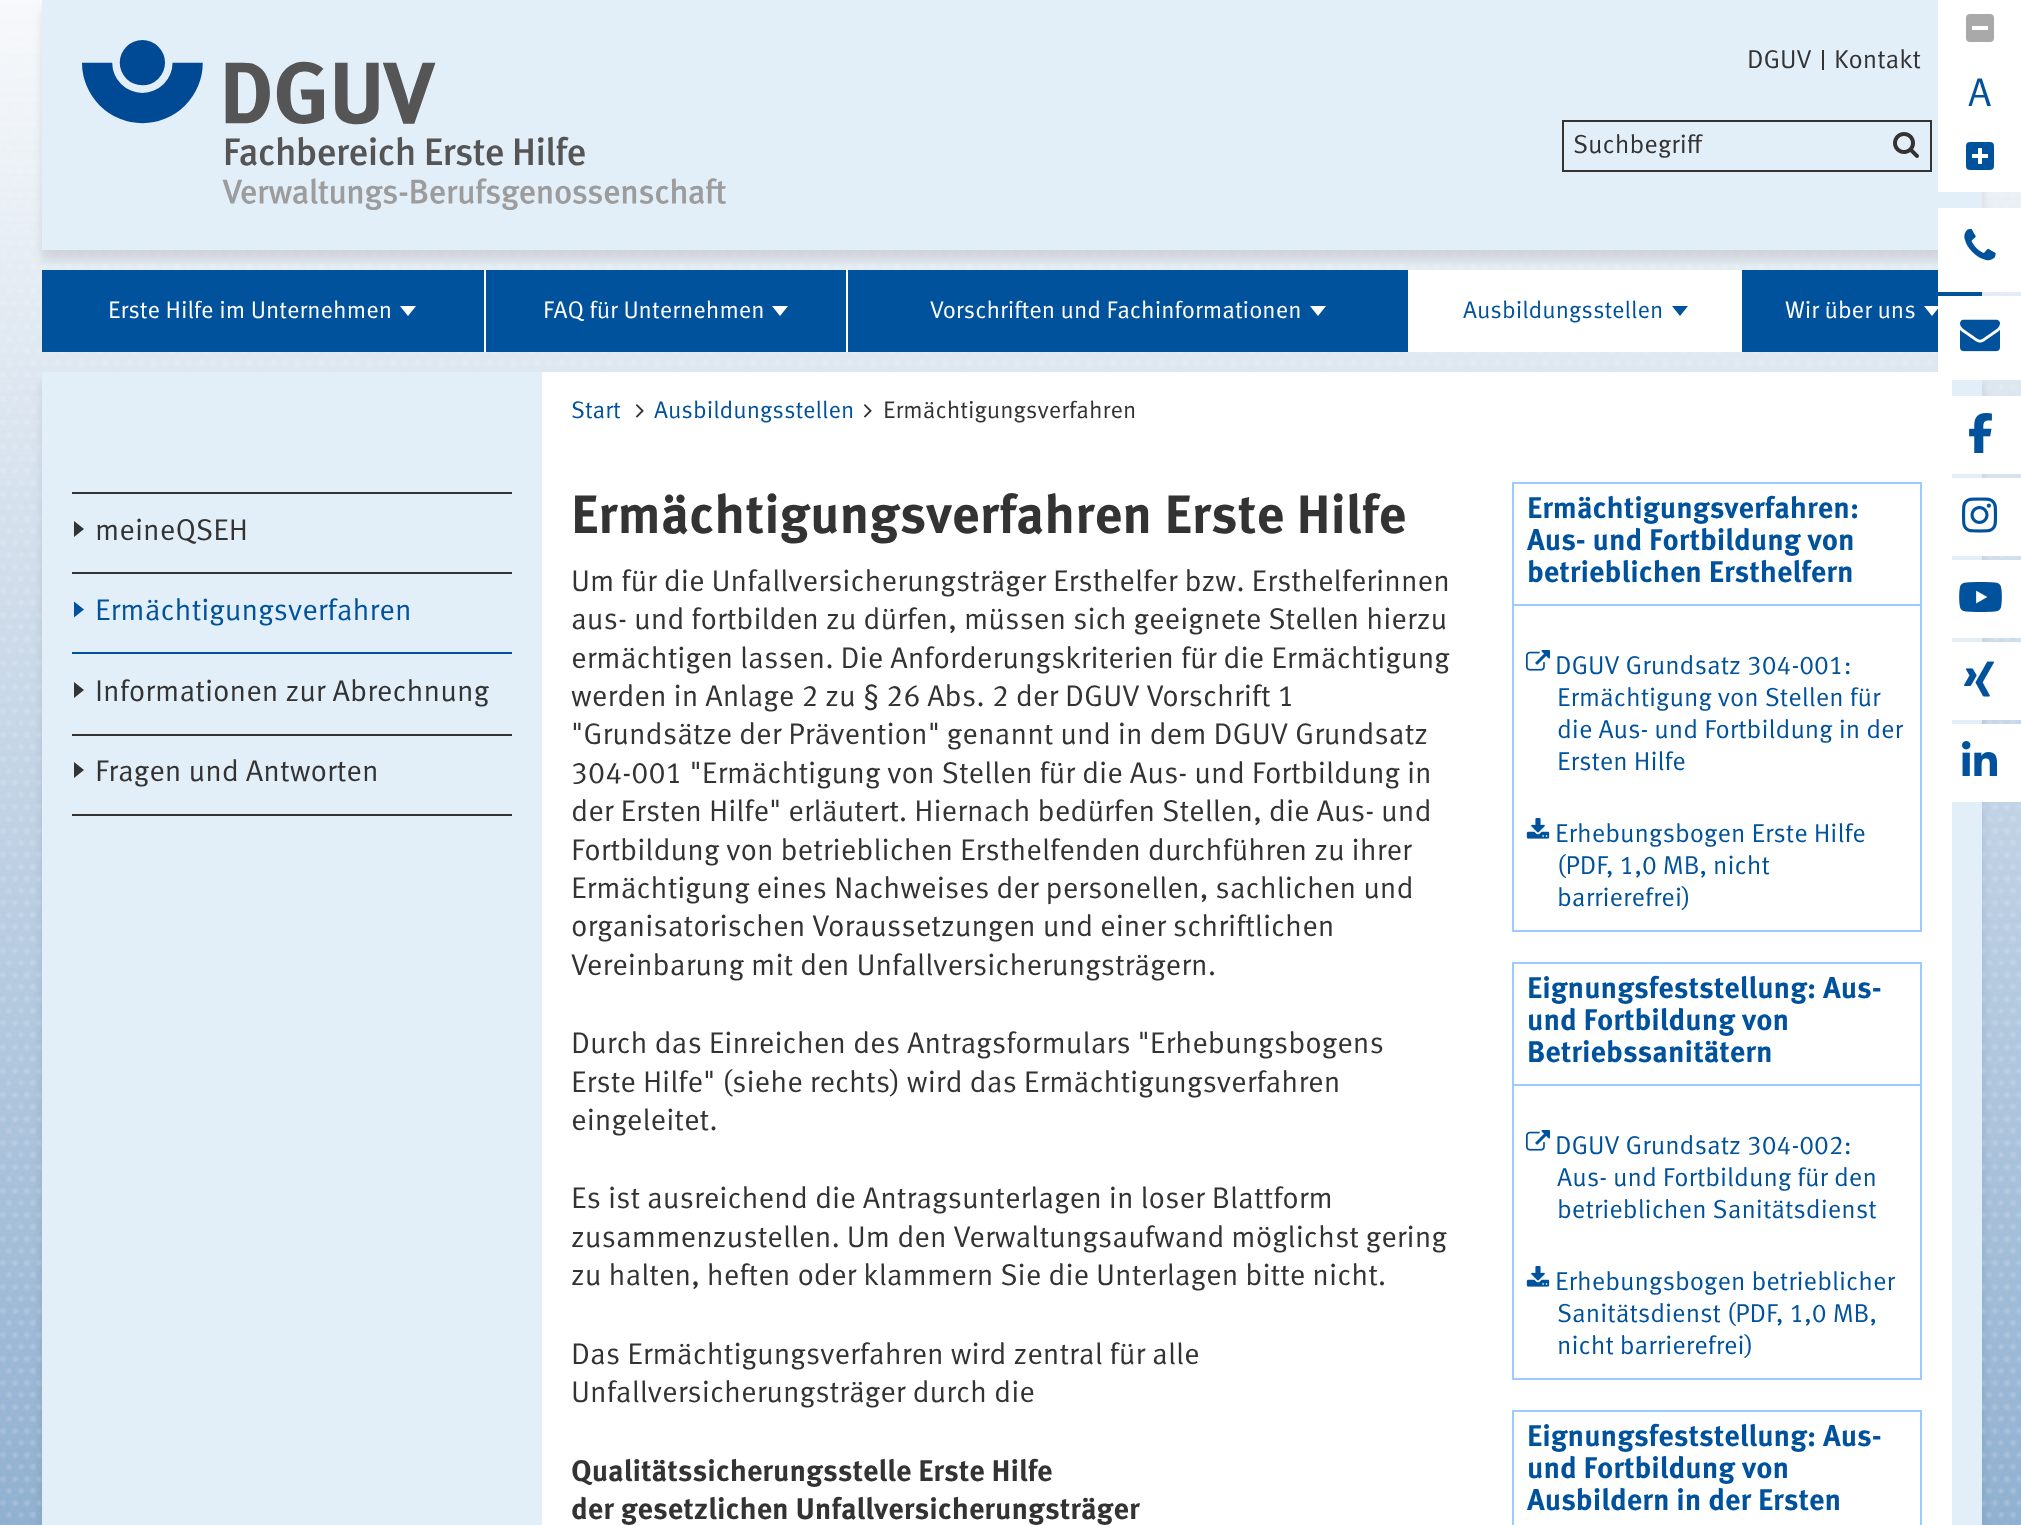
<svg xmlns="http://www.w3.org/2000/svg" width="2021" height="1525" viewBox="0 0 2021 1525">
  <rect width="100%" height="100%" fill="rgb(255,255,255)"/>
  <image x="0" y="0" width="2021" height="1525" href="pic1.png"/>
  <rect x="42" y="10" width="1940" height="250" fill="rgba(0,0,0,0.1)" filter="blur(5px)"/>
  <rect x="42" y="0" width="1940" height="250" fill="rgb(226,238,248)"/>
  <image x="82" y="40" width="644" height="170" href="pic2.png"/>
  <rect x="1822" y="50" width="2" height="20" fill="rgb(51,51,51)"/>
  <g font-family="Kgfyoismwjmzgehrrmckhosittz" font-size="26" fill="rgb(51,51,51)">
    <text x="1747" y="68">DGUV</text>
    <text x="1834" y="68">Kontakt</text>
  </g>
  <rect x="1938" y="0" width="83" height="192" fill="rgb(255,255,255)"/>
  <rect x="1966" y="14" width="28" height="28" rx="4" fill="rgb(169,169,169)"/>
  <rect x="1972" y="26" width="16" height="4" fill="rgb(255,255,255)"/>
  <text x="1968" y="106" font-family="Kgfyoismwjmzgehrrmckhosittz" font-size="40" fill="rgb(0,82,156)">A</text>
  <rect x="1966" y="142" width="28" height="28" rx="4" fill="rgb(0,82,156)"/>
  <rect x="1972" y="154" width="16" height="4" fill="rgb(255,255,255)"/>
  <rect x="1978" y="148" width="4" height="16" fill="rgb(255,255,255)"/>
  <rect x="42" y="270" width="1940" height="82" fill="rgb(0,82,156)"/>
  <rect x="1938" y="208" width="83" height="84" fill="rgb(255,255,255)"/>
  <image x="1964" y="228" width="32" height="33" href="pic3.png"/>
  <path d="M1924 306H1940L1932 316Z" fill="rgb(255,255,255)"/>
  <rect x="42" y="382" width="1940" height="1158" fill="rgba(0,0,0,0.1)" filter="blur(5px)"/>
  <rect x="42" y="372" width="1940" height="1153" fill="rgb(226,238,248)"/>
  <rect x="542" y="372" width="1410" height="1153" fill="rgb(255,255,255)"/>
  <rect x="1938" y="296" width="83" height="84" fill="rgb(255,255,255)"/>
  <image x="1960" y="319" width="40" height="33" href="pic4.png"/>
  <rect x="1952" y="396" width="69" height="78" fill="rgb(255,255,255)"/>
  <image x="1969" y="413" width="23" height="40" href="pic5.png"/>
  <rect x="1952" y="478" width="69" height="78" fill="rgb(255,255,255)"/>
  <image x="1962" y="497" width="35" height="36" href="pic6.png"/>
  <rect x="1952" y="560" width="69" height="78" fill="rgb(255,255,255)"/>
  <image x="1959" y="582" width="43" height="30" href="pic7.png"/>
  <rect x="1952" y="642" width="69" height="78" fill="rgb(255,255,255)"/>
  <image x="1964" y="661" width="30" height="36" href="pic8.png"/>
  <rect x="1952" y="724" width="69" height="78" fill="rgb(255,255,255)"/>
  <image x="1962" y="741" width="35" height="35" href="pic9.png"/>
  <rect x="1563" y="121" width="368" height="50" fill="none" stroke="rgb(51,51,51)" stroke-width="2"/>
  <text x="1573" y="153" font-family="Kgfyoismwjmzgehrrmckhosittz" font-size="26" fill="rgb(51,51,51)">Suchbegriff</text>
  <image x="1893" y="132" width="26" height="26" href="pic10.png"/>
  <rect x="484" y="270" width="2" height="82" fill="rgb(255,255,255)"/>
  <text x="108" y="318" font-family="Kgfyoismwjmzgehrrmckhosittz" font-size="24" fill="rgb(255,255,255)">Erste Hilfe im Unternehmen</text>
  <path d="M400 306H416L408 316Z" fill="rgb(255,255,255)"/>
  <rect x="846" y="270" width="2" height="82" fill="rgb(255,255,255)"/>
  <text x="543" y="318" font-family="Kgfyoismwjmzgehrrmckhosittz" font-size="24" fill="rgb(255,255,255)">FAQ für Unternehmen</text>
  <path d="M772 306H788L780 316Z" fill="rgb(255,255,255)"/>
  <rect x="1408" y="270" width="2" height="82" fill="rgb(255,255,255)"/>
  <text x="930" y="318" font-family="Kgfyoismwjmzgehrrmckhosittz" font-size="24" fill="rgb(255,255,255)">Vorschriften und Fachinformationen</text>
  <path d="M1310 306H1326L1318 316Z" fill="rgb(255,255,255)"/>
  <rect x="1410" y="270" width="332" height="82" fill="rgb(255,255,255)"/>
  <text x="1463" y="318" font-family="Kgfyoismwjmzgehrrmckhosittz" font-size="24" fill="rgb(0,82,156)">Ausbildungsstellen</text>
  <path d="M1672 306H1688L1680 316Z" fill="rgb(0,82,156)"/>
  <text x="1785" y="318" font-family="Kgfyoismwjmzgehrrmckhosittz" font-size="24" fill="rgb(255,255,255)">Wir über uns</text>
  <rect x="72" y="492" width="440" height="2" fill="rgb(51,51,51)"/>
  <rect x="72" y="572" width="440" height="2" fill="rgb(51,51,51)"/>
  <path d="M74 537V521L84 529Z" fill="rgb(51,51,51)"/>
  <text x="95" y="540" font-family="Kgfyoismwjmzgehrrmckhosittz" font-size="30" fill="rgb(51,51,51)">meineQSEH</text>
  <rect x="72" y="652" width="440" height="2" fill="rgb(0,82,156)"/>
  <path d="M74 617.5V601.5L84 609.5Z" fill="rgb(0,82,156)"/>
  <text x="95" y="620" font-family="Kgfyoismwjmzgehrrmckhosittz" font-size="30" fill="rgb(0,82,156)">Ermächtigungsverfahren</text>
  <rect x="72" y="734" width="440" height="2" fill="rgb(51,51,51)"/>
  <path d="M74 698V682L84 690Z" fill="rgb(51,51,51)"/>
  <text x="95" y="701" font-family="Kgfyoismwjmzgehrrmckhosittz" font-size="30" fill="rgb(51,51,51)">Informationen zur Abrechnung</text>
  <rect x="72" y="814" width="440" height="2" fill="rgb(51,51,51)"/>
  <path d="M74 778V762L84 770Z" fill="rgb(51,51,51)"/>
  <text x="95" y="781" font-family="Kgfyoismwjmzgehrrmckhosittz" font-size="30" fill="rgb(51,51,51)">Fragen und Antworten</text>
  <text x="571" y="418" font-family="Kgfyoismwjmzgehrrmckhosittz" font-size="24" fill="rgb(0,82,156)">Start</text>
  <image x="635" y="404" width="9" height="14" href="pic11.png"/>
  <text x="654" y="418" font-family="Kgfyoismwjmzgehrrmckhosittz" font-size="24" fill="rgb(0,82,156)">Ausbildungsstellen</text>
  <image x="863" y="404" width="9" height="14" href="pic11.png"/>
  <text x="883" y="418" font-family="Kgfyoismwjmzgehrrmckhosittz" font-size="24" fill="rgb(51,51,51)">Ermächtigungsverfahren</text>
  <text x="571" y="533" font-family="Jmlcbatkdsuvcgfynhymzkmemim" font-size="54" font-weight="bold" fill="rgb(51,51,51)">Ermächtigungsverfahren Erste Hilfe</text>
  <g font-family="Kgfyoismwjmzgehrrmckhosittz" font-size="30" fill="rgb(51,51,51)">
    <text>
      <tspan x="571" y="591">Um für die Unfallversicherungsträger Ersthelfer bzw. Ersthelferinnen</tspan>
      <tspan x="571" y="629">aus- und fortbilden zu dürfen, müssen sich geeignete Stellen hierzu</tspan>
      <tspan x="571" y="668">ermächtigen lassen. Die Anforderungskriterien für die Ermächtigung</tspan>
      <tspan x="571" y="706">werden in Anlage 2 zu § 26 Abs. 2 der DGUV Vorschrift 1</tspan>
      <tspan x="571" y="744">"Grundsätze der Prävention" genannt und in dem DGUV Grundsatz</tspan>
      <tspan x="571" y="783">304-001 "Ermächtigung von Stellen für die Aus- und Fortbildung in</tspan>
      <tspan x="571" y="821">der Ersten Hilfe" erläutert. Hiernach bedürfen Stellen, die Aus- und</tspan>
      <tspan x="571" y="860">Fortbildung von betrieblichen Ersthelfenden durchführen zu ihrer</tspan>
      <tspan x="571" y="898">Ermächtigung eines Nachweises der personellen, sachlichen und</tspan>
      <tspan x="571" y="936">organisatorischen Voraussetzungen und einer schriftlichen</tspan>
      <tspan x="571" y="975">Vereinbarung mit den Unfallversicherungsträgern.</tspan>
    </text>
    <text>
      <tspan x="571" y="1053">Durch das Einreichen des Antragsformulars "Erhebungsbogens</tspan>
      <tspan x="571" y="1092">Erste Hilfe" (siehe rechts) wird das Ermächtigungsverfahren</tspan>
      <tspan x="571" y="1130">eingeleitet.</tspan>
    </text>
    <text>
      <tspan x="571" y="1208">Es ist ausreichend die Antragsunterlagen in loser Blattform</tspan>
      <tspan x="571" y="1247">zusammenzustellen. Um den Verwaltungsaufwand möglichst gering</tspan>
      <tspan x="571" y="1285">zu halten, heften oder klammern Sie die Unterlagen bitte nicht.</tspan>
    </text>
    <text>
      <tspan x="571" y="1364">Das Ermächtigungsverfahren wird zentral für alle</tspan>
      <tspan x="571" y="1402">Unfallversicherungsträger durch die</tspan>
    </text>
  </g>
  <g font-family="Jmlcbatkdsuvcgfynhymzkmemim" font-size="30" font-weight="bold" fill="rgb(51,51,51)">
    <text>
      <tspan x="571" y="1481">Qualitätssicherungsstelle Erste Hilfe</tspan>
      <tspan x="571" y="1519">der gesetzlichen Unfallversicherungsträger</tspan>
    </text>
  </g>
  <rect x="1513" y="483" width="408" height="448" fill="none" stroke="rgb(153,204,255)" stroke-width="2"/>
  <rect x="1514" y="604" width="406" height="2" fill="rgb(153,204,255)"/>
  <g font-family="Jmlcbatkdsuvcgfynhymzkmemim" font-size="30" font-weight="bold" fill="rgb(0,82,156)">
    <text>
      <tspan x="1527" y="518">Ermächtigungsverfahren:</tspan>
      <tspan x="1527" y="550">Aus- und Fortbildung von</tspan>
      <tspan x="1527" y="582">betrieblichen Ersthelfern</tspan>
    </text>
  </g>
  <image x="1526" y="650" width="24" height="21" href="pic12.png"/>
  <g font-family="Kgfyoismwjmzgehrrmckhosittz" font-size="26" fill="rgb(0,82,156)">
    <text x="1555" y="674">DGUV Grundsatz 304-001:</text>
    <text>
      <tspan x="1557" y="706">Ermächtigung von Stellen für</tspan>
      <tspan x="1557" y="738">die Aus- und Fortbildung in der</tspan>
      <tspan x="1557" y="770">Ersten Hilfe</tspan>
    </text>
  </g>
  <image x="1526" y="818" width="24" height="21" href="pic13.png"/>
  <g font-family="Kgfyoismwjmzgehrrmckhosittz" font-size="26" fill="rgb(0,82,156)">
    <text x="1555" y="842">Erhebungsbogen Erste Hilfe</text>
    <text>
      <tspan x="1557" y="874">(PDF, 1,0 MB, nicht</tspan>
      <tspan x="1557" y="906">barrierefrei)</tspan>
    </text>
  </g>
  <rect x="1513" y="963" width="408" height="416" fill="none" stroke="rgb(153,204,255)" stroke-width="2"/>
  <rect x="1514" y="1084" width="406" height="2" fill="rgb(153,204,255)"/>
  <g font-family="Jmlcbatkdsuvcgfynhymzkmemim" font-size="30" font-weight="bold" fill="rgb(0,82,156)">
    <text>
      <tspan x="1527" y="998">Eignungsfeststellung: Aus-</tspan>
      <tspan x="1527" y="1030">und Fortbildung von</tspan>
      <tspan x="1527" y="1062">Betriebssanitätern</tspan>
    </text>
  </g>
  <image x="1526" y="1130" width="24" height="21" href="pic12.png"/>
  <g font-family="Kgfyoismwjmzgehrrmckhosittz" font-size="26" fill="rgb(0,82,156)">
    <text x="1555" y="1154">DGUV Grundsatz 304-002:</text>
    <text>
      <tspan x="1557" y="1186">Aus- und Fortbildung für den</tspan>
      <tspan x="1557" y="1218">betrieblichen Sanitätsdienst</tspan>
    </text>
  </g>
  <image x="1526" y="1266" width="24" height="21" href="pic13.png"/>
  <g font-family="Kgfyoismwjmzgehrrmckhosittz" font-size="26" fill="rgb(0,82,156)">
    <text x="1555" y="1290">Erhebungsbogen betrieblicher</text>
    <text>
      <tspan x="1557" y="1322">Sanitätsdienst (PDF, 1,0 MB,</tspan>
      <tspan x="1557" y="1354">nicht barrierefrei)</tspan>
    </text>
  </g>
  <rect x="1513" y="1411" width="408" height="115" fill="none" stroke="rgb(153,204,255)" stroke-width="2"/>
  <g font-family="Jmlcbatkdsuvcgfynhymzkmemim" font-size="30" font-weight="bold" fill="rgb(0,82,156)">
    <text>
      <tspan x="1527" y="1446">Eignungsfeststellung: Aus-</tspan>
      <tspan x="1527" y="1478">und Fortbildung von</tspan>
      <tspan x="1527" y="1510">Ausbildern in der Ersten</tspan>
    </text>
  </g>
</svg>
